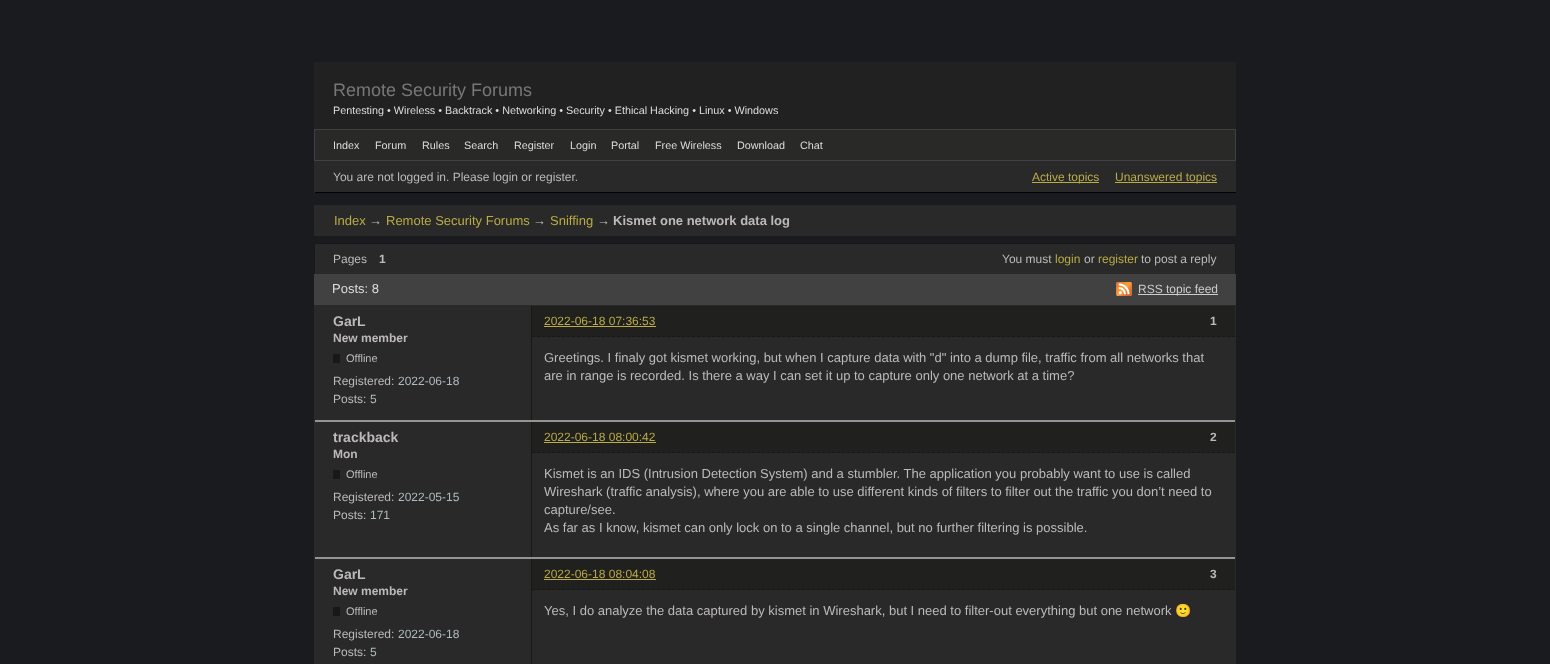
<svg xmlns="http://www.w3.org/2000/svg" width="1550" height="664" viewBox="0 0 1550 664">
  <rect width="100%" height="100%" fill="rgb(26,27,31)"/>
  <rect x="314" y="62" width="922" height="67" fill="rgb(34,33,33)"/>
  <text x="333" y="96" font-family="Liberation Sans" font-size="18" fill="rgb(119,119,119)">Remote Security Forums</text>
  <text x="333" y="114" font-family="Liberation Sans" font-size="10.8" fill="rgb(221,221,221)">Pentesting • Wireless • Backtrack • Networking • Security • Ethical Hacking • Linux • Windows</text>
  <rect x="314.5" y="129.5" width="921" height="31" fill="rgb(41,41,40)" stroke="rgb(65,65,69)"/>
  <g font-family="Liberation Sans" font-size="10.8" fill="rgb(221,221,221)">
    <text x="333" y="149">Index</text>
    <text x="375" y="149">Forum</text>
    <text x="422" y="149">Rules</text>
    <text x="464" y="149">Search</text>
    <text x="514" y="149">Register</text>
    <text x="570" y="149">Login</text>
    <text x="611" y="149">Portal</text>
    <text x="655" y="149">Free Wireless</text>
    <text x="737" y="149">Download</text>
    <text x="800" y="149">Chat</text>
  </g>
  <rect x="315" y="161" width="921" height="31" fill="rgb(41,41,41)"/>
  <rect x="314" y="192" width="922" height="1" fill="rgb(0,0,17)"/>
  <rect x="314" y="161" width="1" height="32" fill="rgb(41,41,41)"/>
  <text x="333" y="181" font-family="Liberation Sans" font-size="12" fill="rgb(189,185,185)">You are not logged in. Please login or register.</text>
  <rect x="1032" y="182" width="67" height="1" fill="rgb(186,171,68)"/>
  <text x="1032" y="181" font-family="Liberation Sans" font-size="12" fill="rgb(186,171,68)">Active topics</text>
  <rect x="1115" y="182" width="102" height="1" fill="rgb(186,171,68)"/>
  <text x="1115" y="181" font-family="Liberation Sans" font-size="12" fill="rgb(186,171,68)">Unanswered topics</text>
  <rect x="314" y="205" width="922" height="31" fill="rgb(41,41,41)"/>
  <text x="334" y="225" font-family="Liberation Sans" font-size="13" fill="rgb(186,171,68)">Index</text>
  <text x="369" y="225" font-family="Liberation Sans" font-size="13" fill="rgb(189,185,185)">→</text>
  <text x="386" y="225" font-family="Liberation Sans" font-size="13" fill="rgb(186,171,68)">Remote Security Forums</text>
  <text x="533" y="225" font-family="Liberation Sans" font-size="13" fill="rgb(189,185,185)">→</text>
  <text x="550" y="225" font-family="Liberation Sans" font-size="13" fill="rgb(186,171,68)">Sniffing</text>
  <text x="597" y="225" font-family="Liberation Sans" font-size="13" fill="rgb(189,185,185)">→</text>
  <text x="613" y="225" font-family="Liberation Sans" font-size="13" font-weight="bold" fill="rgb(189,185,185)">Kismet one network data log</text>
  <rect x="315" y="244" width="920" height="30" fill="rgb(41,41,41)"/>
  <rect x="314" y="243" width="922" height="1" fill="rgb(24,24,24)"/>
  <rect x="1235" y="243" width="1" height="31" fill="rgb(24,24,24)"/>
  <rect x="314" y="243" width="1" height="31" fill="rgb(24,24,24)"/>
  <text x="333" y="263" font-family="Liberation Sans" font-size="12" fill="rgb(189,185,185)">Pages</text>
  <text x="379" y="263" font-family="Liberation Sans" font-size="12" font-weight="bold" fill="rgb(189,185,185)">1</text>
  <text x="1002" y="263" font-family="Liberation Sans" font-size="12" fill="rgb(189,185,185)">You must</text>
  <text x="1055" y="263" font-family="Liberation Sans" font-size="12" fill="rgb(186,171,68)">login</text>
  <text x="1084" y="263" font-family="Liberation Sans" font-size="12" fill="rgb(189,185,185)">or</text>
  <text x="1098" y="263" font-family="Liberation Sans" font-size="12" fill="rgb(186,171,68)">register</text>
  <text x="1141" y="263" font-family="Liberation Sans" font-size="12" fill="rgb(189,185,185)">to post a reply</text>
  <rect x="314" y="274" width="922" height="31" fill="rgb(65,65,65)"/>
  <text x="332" y="293" font-family="Liberation Sans" font-size="13" fill="rgb(221,221,221)">Posts: 8</text>
  <image x="1116" y="282" width="16" height="14" href="pic1.png"/>
  <rect x="1138" y="294" width="80" height="1" fill="rgb(204,204,204)"/>
  <text x="1138" y="293" font-family="Liberation Sans" font-size="12" fill="rgb(204,204,204)">RSS topic feed</text>
  <rect x="314" y="305" width="922" height="359" fill="rgb(41,41,41)"/>
  <rect x="315" y="420" width="920" height="2" fill="rgb(148,148,148)"/>
  <rect x="531" y="306" width="1" height="114" fill="rgb(24,24,24)"/>
  <rect x="532" y="306" width="703" height="31" fill="rgb(32,32,31)"/>
  <path d="M532 336.5H1235" fill="none" stroke="rgb(24,24,24)" stroke-dasharray="3 2"/>
  <text x="333" y="326" font-family="Liberation Sans" font-size="14" font-weight="bold" fill="rgb(189,185,185)">GarL</text>
  <text x="544" y="325" font-family="Liberation Sans" font-size="12" fill="rgb(186,171,68)">2022-06-18 07:36:53</text>
  <rect x="544" y="326" width="112" height="1" fill="rgb(186,171,68)"/>
  <g font-family="Liberation Sans" font-size="12" font-weight="bold" fill="rgb(189,185,185)">
    <text x="1210" y="325">1</text>
    <text x="333" y="342">New member</text>
  </g>
  <rect x="333" y="354" width="7" height="9" fill="rgb(24,24,24)"/>
  <text x="346" y="362" font-family="Liberation Sans" font-size="11" fill="rgb(189,185,185)">Offline</text>
  <text x="333" y="385" font-family="Liberation Sans" font-size="12" fill="rgb(189,185,185)">Registered:</text>
  <text x="398" y="385" font-family="Liberation Sans" font-size="12" fill="rgb(174,187,191)">2022-06-18</text>
  <text x="333" y="403" font-family="Liberation Sans" font-size="12" fill="rgb(189,185,185)">Posts:</text>
  <text x="370" y="403" font-family="Liberation Sans" font-size="12" fill="rgb(174,187,191)">5</text>
  <g font-family="Liberation Sans" font-size="13" fill="rgb(189,185,185)">
    <text>
      <tspan x="544" y="362">Greetings. I finaly got kismet working, but when I capture data with "d" into a dump file, traffic from all networks that</tspan>
      <tspan x="544" y="380">are in range is recorded. Is there a way I can set it up to capture only one network at a time?</tspan>
    </text>
  </g>
  <rect x="315" y="557" width="920" height="2" fill="rgb(148,148,148)"/>
  <rect x="531" y="422" width="1" height="135" fill="rgb(24,24,24)"/>
  <rect x="532" y="422" width="703" height="31" fill="rgb(32,32,31)"/>
  <path d="M532 452.5H1235" fill="none" stroke="rgb(24,24,24)" stroke-dasharray="3 2"/>
  <text x="333" y="442" font-family="Liberation Sans" font-size="14" font-weight="bold" fill="rgb(189,185,185)">trackback</text>
  <text x="544" y="441" font-family="Liberation Sans" font-size="12" fill="rgb(186,171,68)">2022-06-18 08:00:42</text>
  <rect x="544" y="442" width="112" height="1" fill="rgb(186,171,68)"/>
  <g font-family="Liberation Sans" font-size="12" font-weight="bold" fill="rgb(189,185,185)">
    <text x="1210" y="441">2</text>
    <text x="333" y="458">Mon</text>
  </g>
  <rect x="333" y="470" width="7" height="9" fill="rgb(24,24,24)"/>
  <text x="346" y="478" font-family="Liberation Sans" font-size="11" fill="rgb(189,185,185)">Offline</text>
  <text x="333" y="501" font-family="Liberation Sans" font-size="12" fill="rgb(189,185,185)">Registered:</text>
  <text x="398" y="501" font-family="Liberation Sans" font-size="12" fill="rgb(174,187,191)">2022-05-15</text>
  <text x="333" y="519" font-family="Liberation Sans" font-size="12" fill="rgb(189,185,185)">Posts:</text>
  <text x="370" y="519" font-family="Liberation Sans" font-size="12" fill="rgb(174,187,191)">171</text>
  <g font-family="Liberation Sans" font-size="13" fill="rgb(189,185,185)">
    <text>
      <tspan x="544" y="478">Kismet is an IDS (Intrusion Detection System) and a stumbler. The application you probably want to use is called</tspan>
      <tspan x="544" y="496">Wireshark (traffic analysis), where you are able to use different kinds of filters to filter out the traffic you don’t need to</tspan>
      <tspan x="544" y="514">capture/see.</tspan>
      <tspan x="544" y="532">As far as I know, kismet can only lock on to a single channel, but no further filtering is possible.</tspan>
    </text>
  </g>
  <rect x="531" y="559" width="1" height="105" fill="rgb(24,24,24)"/>
  <rect x="532" y="559" width="703" height="31" fill="rgb(32,32,31)"/>
  <path d="M532 589.5H1235" fill="none" stroke="rgb(24,24,24)" stroke-dasharray="3 2"/>
  <text x="333" y="579" font-family="Liberation Sans" font-size="14" font-weight="bold" fill="rgb(189,185,185)">GarL</text>
  <text x="544" y="578" font-family="Liberation Sans" font-size="12" fill="rgb(186,171,68)">2022-06-18 08:04:08</text>
  <rect x="544" y="579" width="112" height="1" fill="rgb(186,171,68)"/>
  <g font-family="Liberation Sans" font-size="12" font-weight="bold" fill="rgb(189,185,185)">
    <text x="1210" y="578">3</text>
    <text x="333" y="595">New member</text>
  </g>
  <rect x="333" y="607" width="7" height="9" fill="rgb(24,24,24)"/>
  <text x="346" y="615" font-family="Liberation Sans" font-size="11" fill="rgb(189,185,185)">Offline</text>
  <text x="333" y="638" font-family="Liberation Sans" font-size="12" fill="rgb(189,185,185)">Registered:</text>
  <text x="398" y="638" font-family="Liberation Sans" font-size="12" fill="rgb(174,187,191)">2022-06-18</text>
  <text x="333" y="656" font-family="Liberation Sans" font-size="12" fill="rgb(189,185,185)">Posts:</text>
  <text x="370" y="656" font-family="Liberation Sans" font-size="12" fill="rgb(174,187,191)">5</text>
  <text x="544" y="615" font-family="Liberation Sans" font-size="13" fill="rgb(189,185,185)">Yes, I do analyze the data captured by kismet in Wireshark, but I need to filter-out everything but one network</text>
  <text x="1175" y="615" font-family="Noto Color Emoji" font-size="13" fill="rgb(189,185,185)">🙂</text>
</svg>
